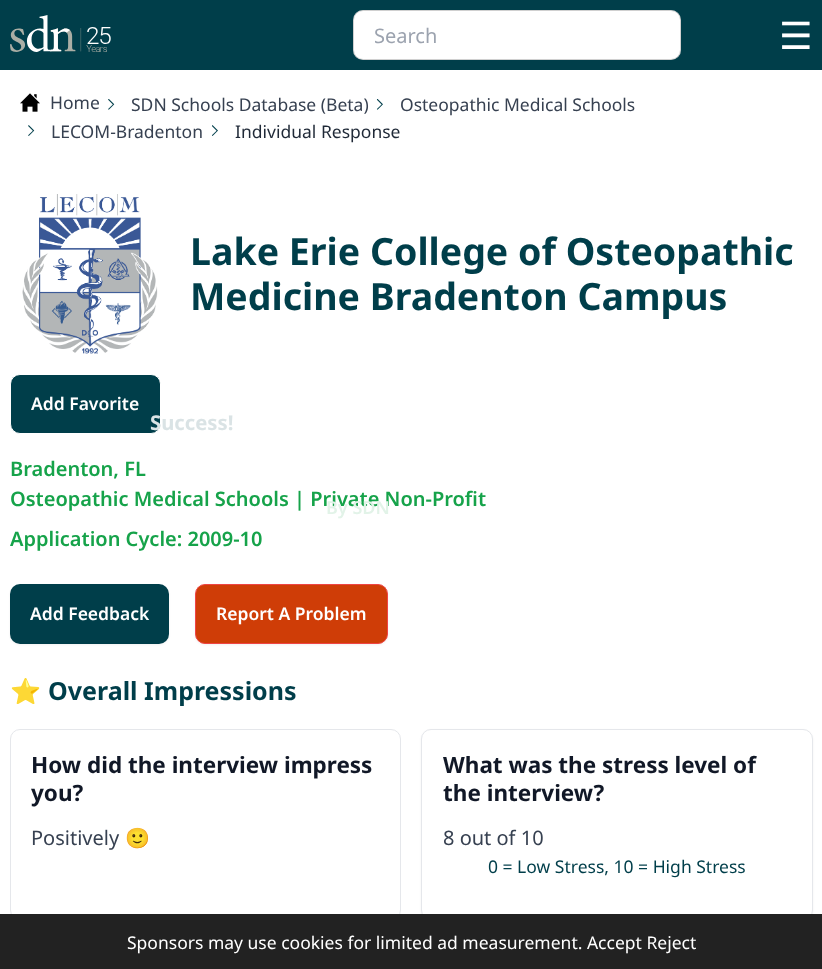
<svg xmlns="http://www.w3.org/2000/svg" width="822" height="969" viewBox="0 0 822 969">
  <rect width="100%" height="100%" fill="rgb(255,255,255)"/>
  <rect x="0" y="0" width="822" height="70" fill="rgb(0,62,74)"/>
  <image x="10" y="15" width="101" height="37" href="pic1.png"/>
  <rect x="353" y="10" width="328" height="50" rx="10" fill="rgb(255,255,255)"/>
  <rect x="353.5" y="10.5" width="327" height="49" rx="9.5" fill="none" stroke="rgba(22,22,22,0.2)"/>
  <text x="374" y="43" font-family="Noto Sans" font-size="20" fill="rgb(156,163,175)">Search</text>
  <text x="779" y="49" font-family="DejaVu Sans" font-size="37.5" fill="rgb(255,255,255)">☰</text>
  <image x="20" y="93" width="20" height="19" href="pic2.png"/>
  <text x="50" y="109" font-family="Noto Sans" font-size="17.5" fill="rgb(55,65,81)">Home</text>
  <image x="108" y="99" width="7" height="11" href="pic3.png"/>
  <text x="131" y="111" font-family="Noto Sans" font-size="17.5" fill="rgb(55,65,81)">SDN Schools Database (Beta)</text>
  <image x="376" y="99" width="7" height="11" href="pic4.png"/>
  <text x="400" y="111" font-family="Noto Sans" font-size="17.5" fill="rgb(55,65,81)">Osteopathic Medical Schools</text>
  <image x="28" y="125" width="7" height="11" href="pic5.png"/>
  <text x="51" y="138" font-family="Noto Sans" font-size="17.5" fill="rgb(55,65,81)">LECOM-Bradenton</text>
  <image x="212" y="125" width="6" height="11" href="pic6.png"/>
  <text x="235" y="138" font-family="Noto Sans" font-size="17.5" fill="rgb(31,41,55)">Individual Response</text>
  <image x="22" y="194" width="136" height="160" href="pic7.png"/>
  <g font-family="Noto Sans" font-size="37.5" font-weight="bold" fill="rgb(0,62,74)">
    <text>
      <tspan x="190" y="265">Lake Erie College of Osteopathic</tspan>
      <tspan x="190" y="310">Medicine Bradenton Campus</tspan>
    </text>
  </g>
  <rect x="10.5" y="374.5" width="150" height="59" rx="9.5" fill="rgb(0,62,74)" stroke="rgb(255,255,255)"/>
  <text x="31" y="410" font-family="Noto Sans" font-size="17.5" font-weight="600" fill="rgb(255,255,255)">Add Favorite</text>
  <g font-family="Noto Sans" font-size="20" font-weight="600" fill="rgb(22,163,74)">
    <text>
      <tspan x="10" y="476">Bradenton, FL</tspan>
      <tspan x="10" y="506">Osteopathic Medical Schools | Private Non-Profit</tspan>
    </text>
    <text x="10" y="546">Application Cycle: 2009-10</text>
  </g>
  <rect x="10" y="585" width="159" height="60" rx="10" fill="rgba(0,0,0,0.05)" filter="blur(1px)"/>
  <rect x="10" y="584" width="159" height="60" rx="10" fill="rgb(0,62,74)"/>
  <text x="30" y="620" font-family="Noto Sans" font-size="17.5" font-weight="600" fill="rgb(255,255,255)">Add Feedback</text>
  <rect x="195" y="585" width="193" height="60" rx="10" fill="rgba(0,0,0,0.05)" filter="blur(1px)"/>
  <rect x="195.5" y="584.5" width="192" height="59" rx="9.5" fill="rgb(207,61,7)" stroke="rgb(239,68,68)"/>
  <text x="216" y="620" font-family="Noto Sans" font-size="17.5" font-weight="600" fill="rgb(255,255,255)">Report A Problem</text>
  <text x="10" y="700" font-family="Noto Color Emoji" font-size="25" font-weight="bold" fill="rgb(0,62,74)">⭐</text>
  <text x="48" y="700" font-family="Noto Sans" font-size="25" font-weight="bold" fill="rgb(0,62,74)">Overall Impressions</text>
  <rect x="10.5" y="729.5" width="390" height="190" rx="9.5" fill="none" stroke="rgb(229,231,235)"/>
  <g font-family="Noto Sans" font-size="22.5" font-weight="bold" fill="rgb(17,24,39)">
    <text>
      <tspan x="31" y="773">How did the interview impress</tspan>
      <tspan x="31" y="801">you?</tspan>
    </text>
  </g>
  <text x="31" y="845" font-family="Noto Sans" font-size="20" fill="rgb(55,65,81)">Positively</text>
  <text x="125" y="845" font-family="Noto Color Emoji" font-size="20" fill="rgb(55,65,81)">🙂</text>
  <rect x="421" y="730" width="392" height="191" rx="10" fill="rgba(0,0,0,0.05)" filter="blur(1px)"/>
  <rect x="421.5" y="729.5" width="391" height="190" rx="9.5" fill="rgb(255,255,255)" stroke="rgb(229,231,235)"/>
  <g font-family="Noto Sans" font-size="22.5" font-weight="bold" fill="rgb(17,24,39)">
    <text>
      <tspan x="443" y="773">What was the stress level of</tspan>
      <tspan x="443" y="801">the interview?</tspan>
    </text>
  </g>
  <text x="443" y="845" font-family="Noto Sans" font-size="20" fill="rgb(55,65,81)">8 out of 10</text>
  <text x="488" y="873" font-family="Noto Sans" font-size="17.5" fill="rgb(0,62,74)">0 = Low Stress, 10 = High Stress</text>
  <text x="150" y="430" font-family="Noto Sans" font-size="20.25" font-weight="bold" fill="rgb(218,227,229)">Success!</text>
  <text x="326" y="514" font-family="Noto Sans" font-size="18" font-weight="600" fill="rgb(226,243,232)">By SDN</text>
  <rect x="0" y="914" width="822" height="55" fill="rgb(34,34,34)"/>
  <text x="127" y="949" font-family="Noto Sans" font-size="17.5" fill="rgb(255,255,255)">Sponsors may use cookies for limited ad measurement. Accept Reject</text>
</svg>
